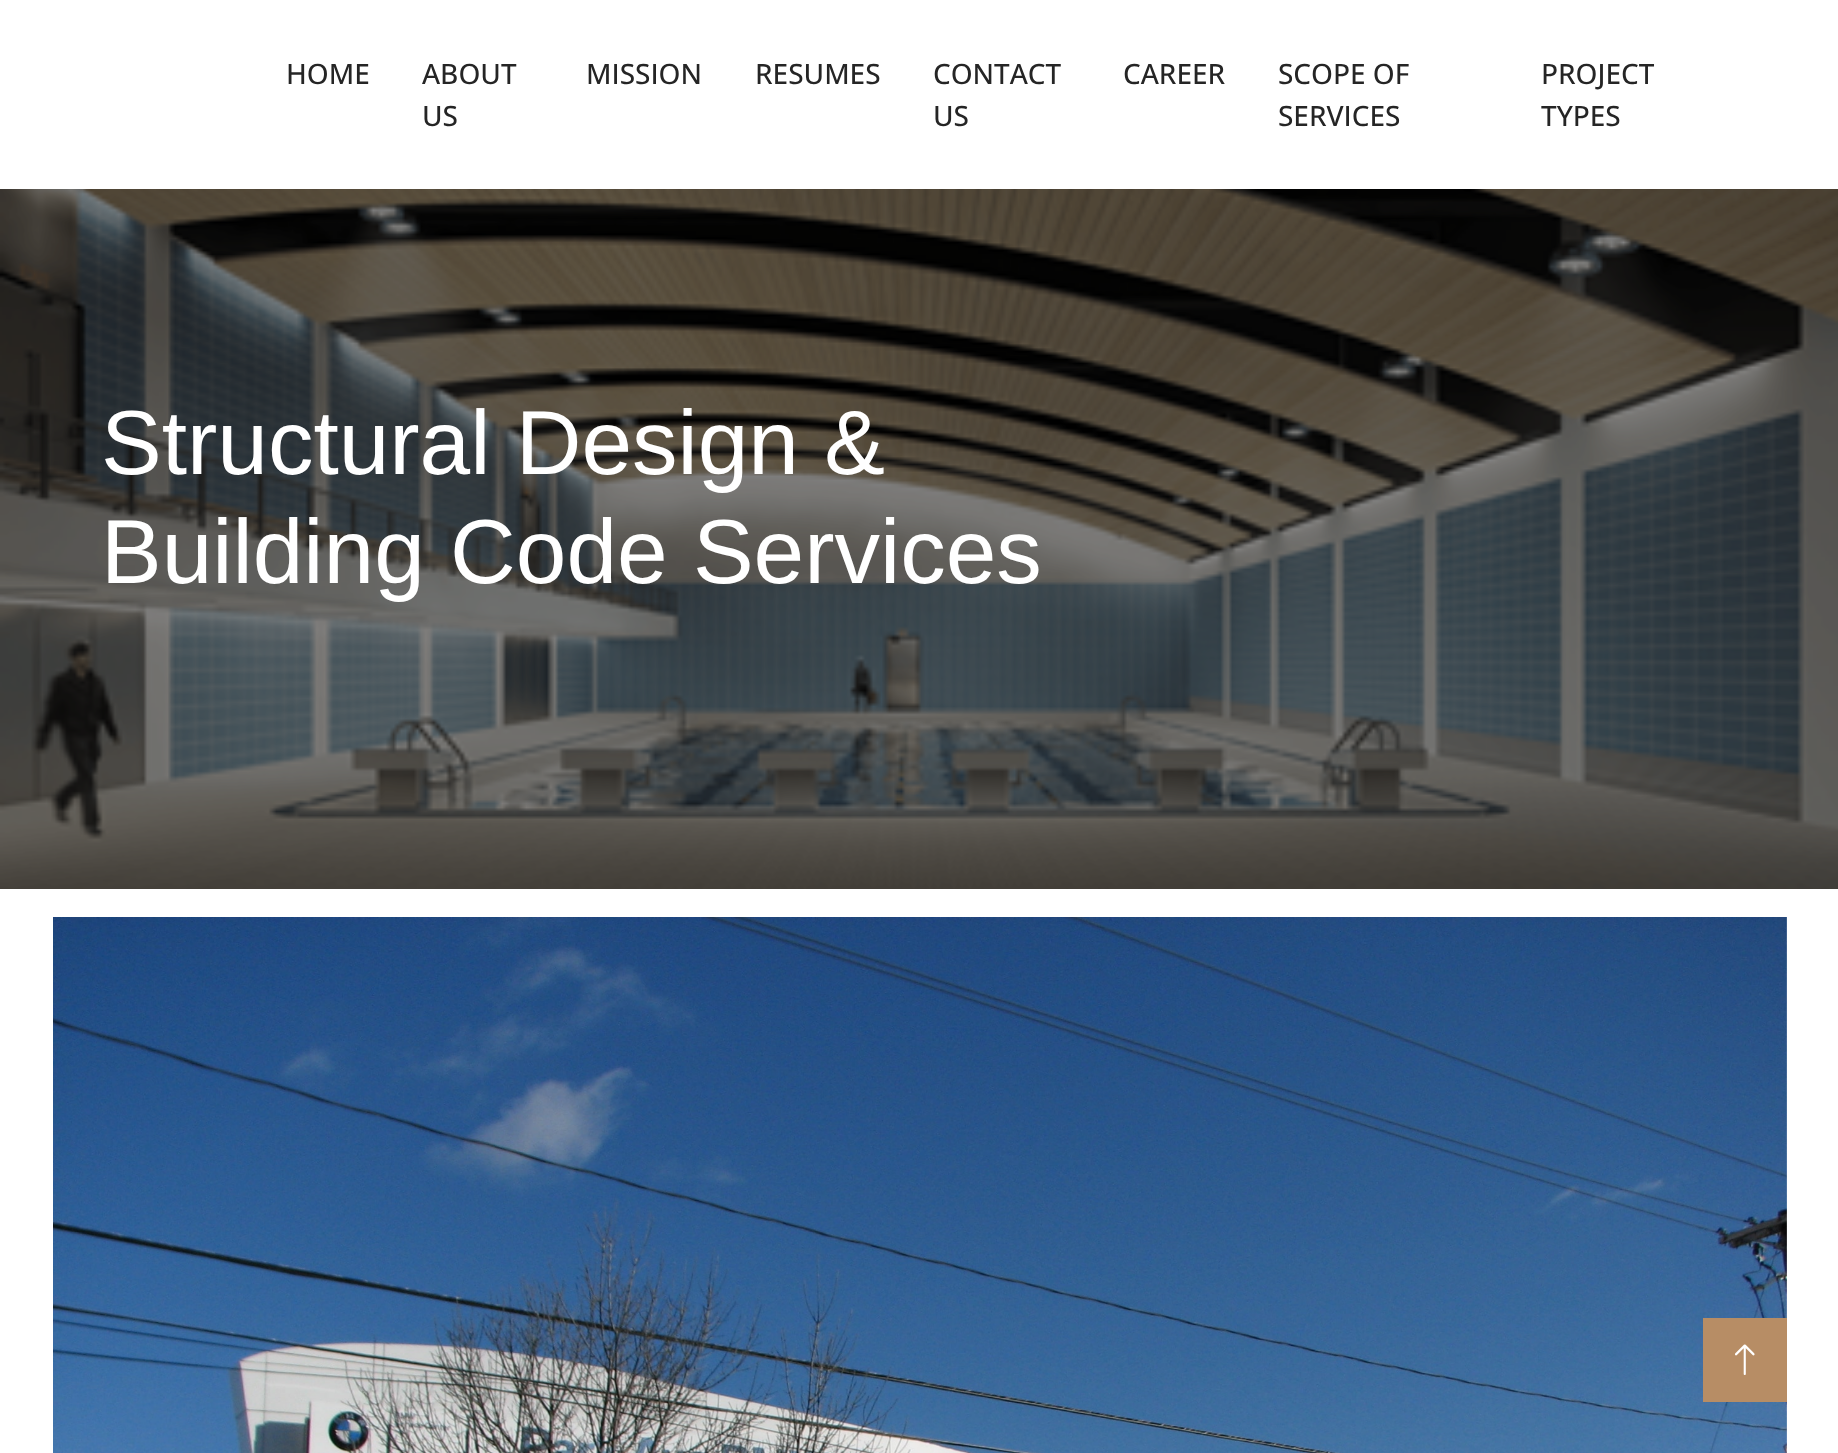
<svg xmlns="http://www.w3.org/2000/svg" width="1838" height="1453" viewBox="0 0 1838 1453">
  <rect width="100%" height="100%" fill="rgb(255,255,255)"/>
  <g font-family="Open Sans" font-size="28" font-weight="500" fill="rgb(37,37,37)">
    <text x="286" y="84">HOME</text>
    <text>
      <tspan x="422" y="84">ABOUT</tspan>
      <tspan x="422" y="126">US</tspan>
    </text>
    <text x="586" y="84">MISSION</text>
    <text x="755" y="84">RESUMES</text>
    <text>
      <tspan x="933" y="84">CONTACT</tspan>
      <tspan x="933" y="126">US</tspan>
    </text>
    <text x="1123" y="84">CAREER</text>
    <text>
      <tspan x="1278" y="84">SCOPE OF</tspan>
      <tspan x="1278" y="126">SERVICES</tspan>
    </text>
    <text>
      <tspan x="1541" y="84">PROJECT</tspan>
      <tspan x="1541" y="126">TYPES</tspan>
    </text>
  </g>
  <image x="0" y="189" width="1838" height="700" href="pic1.png"/>
  <g font-family="Liberation Sans" font-size="91" fill="rgb(255,255,255)">
    <text>
      <tspan x="101" y="474">Structural Design &amp;</tspan>
      <tspan x="101" y="583">Building Code Services</tspan>
    </text>
  </g>
  <image x="53" y="917" width="1734" height="536" href="pic2.png"/>
  <rect x="1703" y="1318" width="84" height="84" fill="rgb(183,141,101)"/>
  <image x="1735" y="1344" width="20" height="31" href="pic3.png"/>
</svg>
